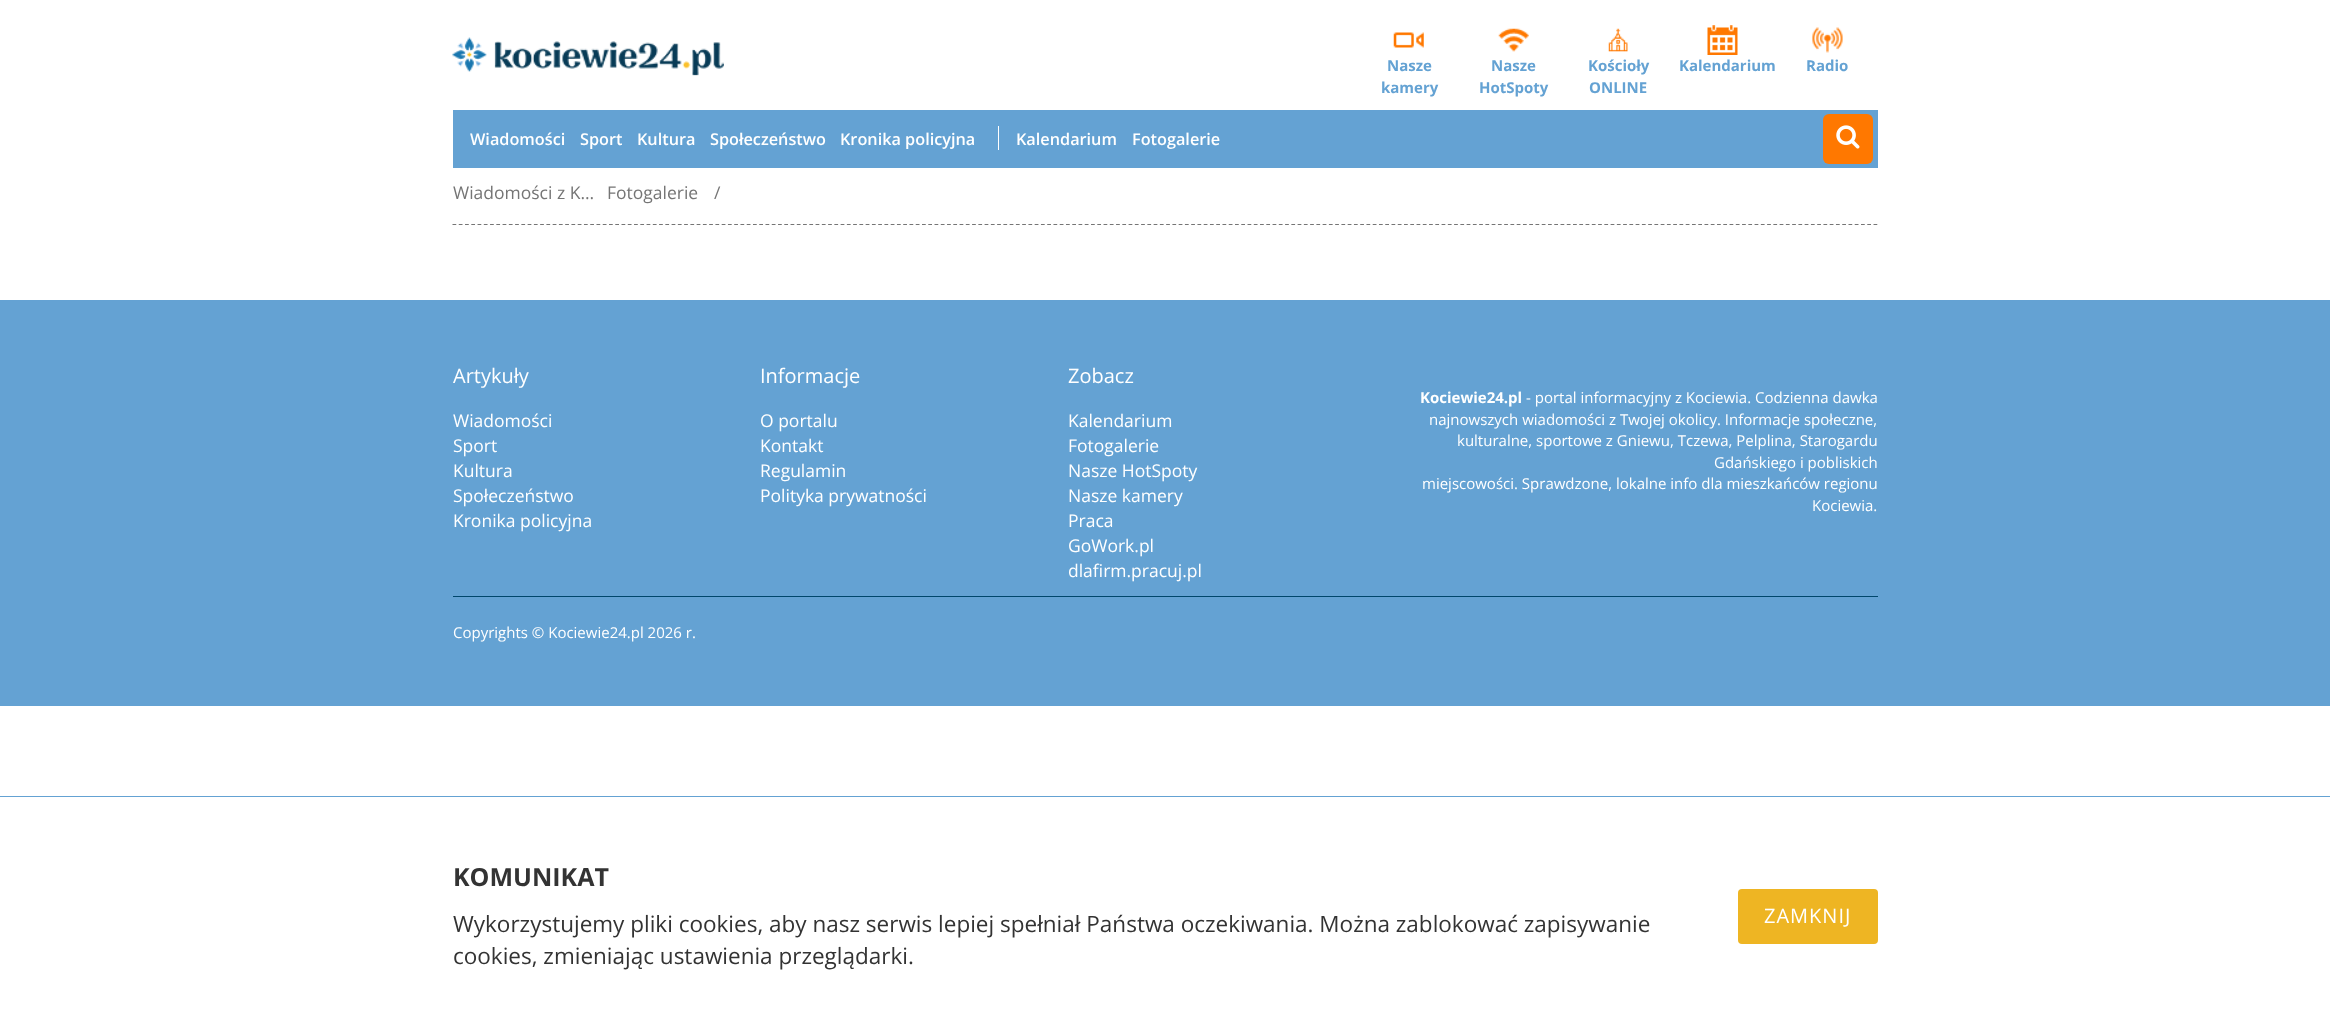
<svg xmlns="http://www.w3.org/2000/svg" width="2330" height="1034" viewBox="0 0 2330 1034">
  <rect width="100%" height="100%" fill="rgb(255,255,255)"/>
  <image x="452" y="37" width="272" height="39" href="pic1.png"/>
  <image x="1393" y="32" width="31" height="16" href="pic2.png"/>
  <g font-family="Open Sans" font-size="15" font-weight="bold" fill="rgb(100,162,211)">
    <text x="1387" y="71">Nasze</text>
    <text x="1381" y="93">kamery</text>
  </g>
  <image x="1498" y="28" width="31" height="24" href="pic3.png"/>
  <g font-family="Open Sans" font-size="15" font-weight="bold" fill="rgb(100,162,211)">
    <text x="1491" y="71">Nasze</text>
    <text x="1479" y="93">HotSpoty</text>
  </g>
  <image x="1608" y="28" width="20" height="24" href="pic4.png"/>
  <g font-family="Open Sans" font-size="15" font-weight="bold" fill="rgb(100,162,211)">
    <text x="1588" y="71">Kościoły</text>
    <text x="1589" y="93">ONLINE</text>
  </g>
  <image x="1707" y="25" width="31" height="30" href="pic5.png"/>
  <text x="1679" y="71" font-family="Open Sans" font-size="15" font-weight="bold" fill="rgb(100,162,211)">Kalendarium</text>
  <image x="1812" y="27" width="31" height="26" href="pic6.png"/>
  <text x="1806" y="71" font-family="Open Sans" font-size="15" font-weight="bold" fill="rgb(100,162,211)">Radio</text>
  <rect x="453" y="110" width="1425" height="58" fill="rgb(100,162,211)"/>
  <rect x="998" y="126" width="1" height="24" fill="rgb(255,255,255)"/>
  <g font-family="Open Sans" font-size="16.25" font-weight="600" fill="rgb(255,255,255)">
    <text x="470" y="145">Wiadomości</text>
    <text x="580" y="145">Sport</text>
    <text x="637" y="145">Kultura</text>
    <text x="710" y="145">Społeczeństwo</text>
    <text x="840" y="145">Kronika policyjna</text>
    <text x="1016" y="145">Kalendarium</text>
    <text x="1132" y="145">Fotogalerie</text>
  </g>
  <rect x="1823" y="114" width="50" height="50" rx="6" fill="rgb(255,120,0)"/>
  <image x="1836" y="125" width="24" height="24" href="pic7.png"/>
  <path d="M452.5 224.5H1877.5" fill="none" stroke="rgb(117,117,117)" stroke-width="1.2" stroke-dasharray="3.75 2.51"/>
  <g font-family="Open Sans" font-size="17.5" fill="rgb(117,117,117)">
    <text x="453" y="199">Wiadomości z K…</text>
    <text x="607" y="199">Fotogalerie</text>
    <text x="714" y="199">/</text>
  </g>
  <rect x="0" y="300" width="2330" height="406" fill="rgb(100,162,211)"/>
  <text x="453" y="383" font-family="Open Sans" font-size="20" fill="rgb(255,255,255)">Artykuły</text>
  <g font-family="Open Sans" font-size="17.5" fill="rgb(255,255,255)">
    <text>
      <tspan x="453" y="427">Wiadomości</tspan>
      <tspan x="453" y="452">Sport</tspan>
      <tspan x="453" y="477">Kultura</tspan>
      <tspan x="453" y="502">Społeczeństwo</tspan>
      <tspan x="453" y="527">Kronika policyjna</tspan>
    </text>
  </g>
  <text x="760" y="383" font-family="Open Sans" font-size="20" fill="rgb(255,255,255)">Informacje</text>
  <g font-family="Open Sans" font-size="17.5" fill="rgb(255,255,255)">
    <text>
      <tspan x="760" y="427">O portalu</tspan>
      <tspan x="760" y="452">Kontakt</tspan>
      <tspan x="760" y="477">Regulamin</tspan>
      <tspan x="760" y="502">Polityka prywatności</tspan>
    </text>
  </g>
  <text x="1068" y="383" font-family="Open Sans" font-size="20" fill="rgb(255,255,255)">Zobacz</text>
  <g font-family="Open Sans" font-size="17.5" fill="rgb(255,255,255)">
    <text>
      <tspan x="1068" y="427">Kalendarium</tspan>
      <tspan x="1068" y="452">Fotogalerie</tspan>
      <tspan x="1068" y="477">Nasze HotSpoty</tspan>
      <tspan x="1068" y="502">Nasze kamery</tspan>
      <tspan x="1068" y="527">Praca</tspan>
      <tspan x="1068" y="552">GoWork.pl</tspan>
      <tspan x="1068" y="577">dlafirm.pracuj.pl</tspan>
    </text>
  </g>
  <text x="1420" y="403" font-family="Open Sans" font-size="15" font-weight="bold" fill="rgb(255,255,255)">Kociewie24.pl</text>
  <g font-family="Open Sans" font-size="15" fill="rgb(255,255,255)">
    <text x="1526" y="403">- portal informacyjny z Kociewia. Codzienna dawka</text>
    <text x="1429" y="425">najnowszych wiadomości z Twojej okolicy. Informacje społeczne,</text>
    <text x="1457" y="446">kulturalne, sportowe z Gniewu, Tczewa, Pelplina, Starogardu</text>
    <text x="1714" y="468">Gdańskiego i pobliskich</text>
    <text x="1422" y="489">miejscowości. Sprawdzone, lokalne info dla mieszkańców regionu</text>
    <text x="1812" y="511">Kociewia.</text>
  </g>
  <rect x="453" y="596" width="1425" height="1" fill="rgb(0,71,108)"/>
  <text x="453" y="638" font-family="Open Sans" font-size="15" fill="rgb(255,255,255)">Copyrights © Kociewie24.pl 2026 r.</text>
  <rect x="0" y="796" width="2330" height="1" fill="rgb(100,162,211)"/>
  <text x="453" y="886" font-family="Open Sans" font-size="25" font-weight="bold" fill="rgb(51,51,51)">KOMUNIKAT</text>
  <g font-family="Open Sans" font-size="22.5" fill="rgb(51,51,51)">
    <text>
      <tspan x="453" y="932">Wykorzystujemy pliki cookies, aby nasz serwis lepiej spełniał Państwa oczekiwania. Można zablokować zapisywanie</tspan>
      <tspan x="453" y="964">cookies, zmieniając ustawienia przeglądarki.</tspan>
    </text>
  </g>
  <rect x="1738" y="889" width="140" height="55" rx="4" fill="rgb(238,181,35)"/>
  <text x="1764" y="923" font-family="Open Sans" font-size="20" letter-spacing="1" fill="rgb(255,255,255)">ZAMKNIJ</text>
</svg>
